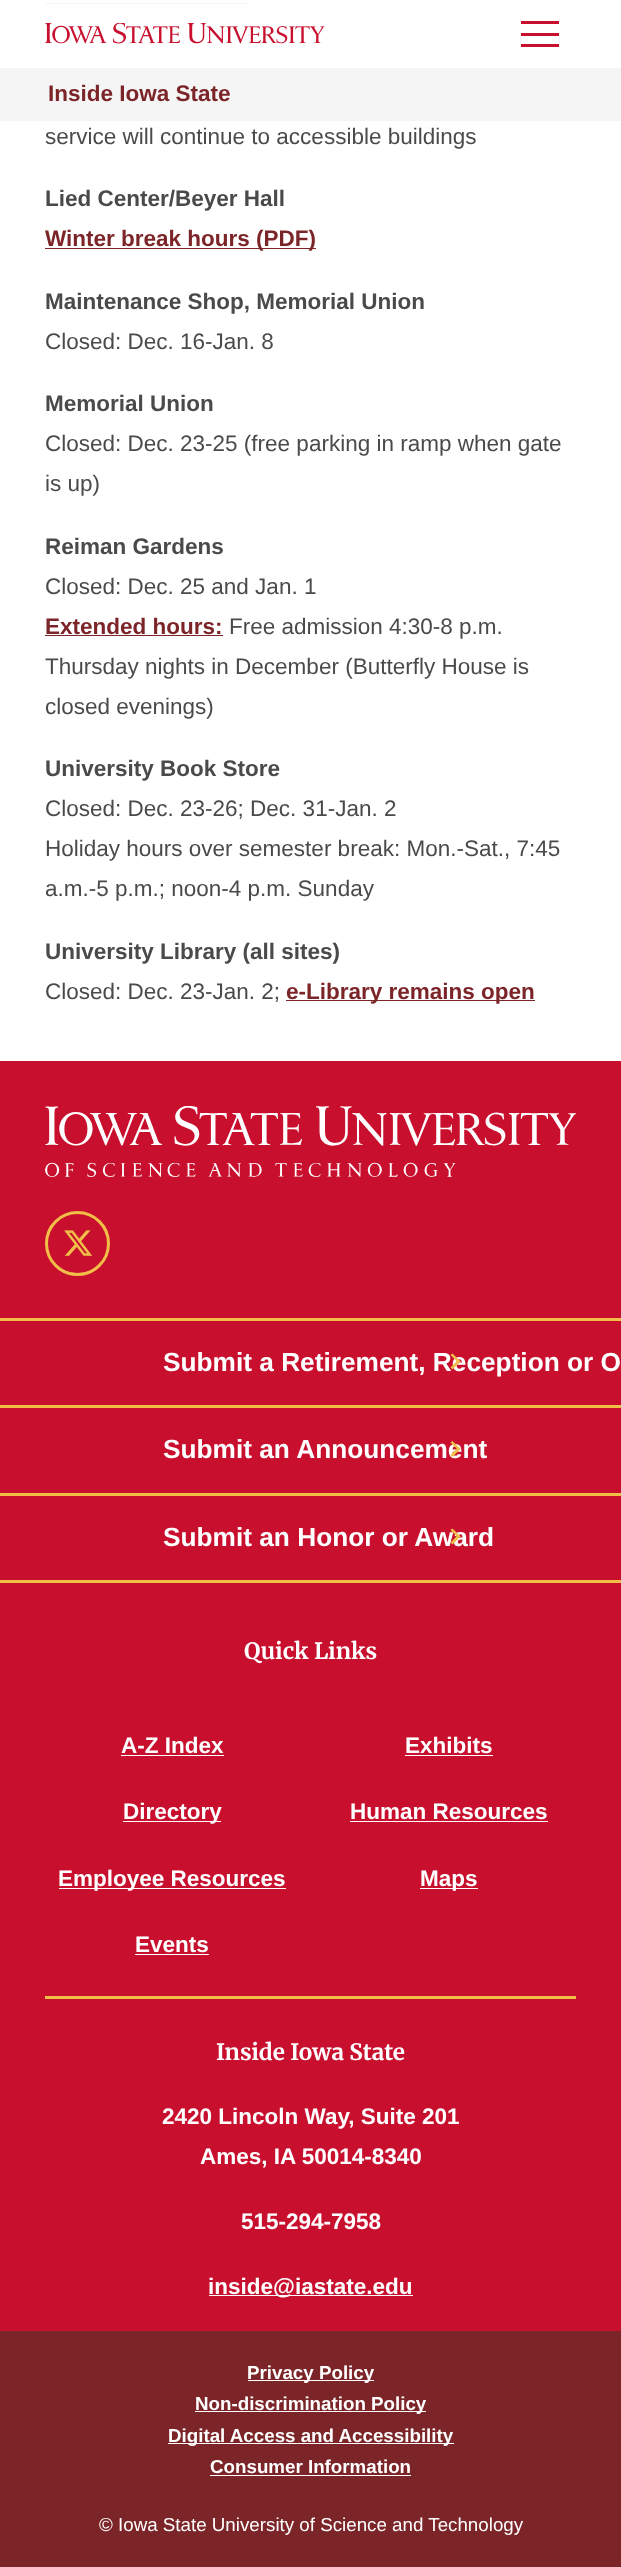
<svg xmlns="http://www.w3.org/2000/svg" width="621" height="2567" viewBox="0 0 621 2567">
  <rect width="100%" height="100%" fill="rgb(255,255,255)"/>
  <rect x="521" y="21" width="38" height="3" fill="rgb(200,16,46)"/>
  <rect x="521" y="33" width="38" height="3" fill="rgb(200,16,46)"/>
  <rect x="521" y="44" width="38" height="3" fill="rgb(200,16,46)"/>
  <image x="45" y="23" width="280" height="21" href="pic1.png"/>
  <rect x="0" y="68" width="621" height="53" fill="rgb(245,245,245)"/>
  <text x="48" y="101" font-family="Liberation Sans" font-size="22.5" font-weight="bold" fill="rgb(124,37,41)">Inside Iowa State</text>
  <rect x="45" y="3" width="205" height="1" fill="rgb(248,244,244)"/>
  <text x="45" y="144" font-family="Liberation Sans" font-size="22.5" fill="rgb(74,74,74)">service will continue to accessible buildings</text>
  <text x="45" y="206" font-family="Liberation Sans" font-size="22.5" font-weight="bold" fill="rgb(74,74,74)">Lied Center/Beyer Hall</text>
  <rect x="45" y="248" width="271" height="1" fill="rgb(124,37,41)"/>
  <text x="45" y="246" font-family="Liberation Sans" font-size="22.5" font-weight="bold" fill="rgb(124,37,41)">Winter break hours (PDF)</text>
  <text x="45" y="309" font-family="Liberation Sans" font-size="22.5" font-weight="bold" fill="rgb(74,74,74)">Maintenance Shop, Memorial Union</text>
  <text x="45" y="349" font-family="Liberation Sans" font-size="22.5" fill="rgb(74,74,74)">Closed: Dec. 16-Jan. 8</text>
  <text x="45" y="411" font-family="Liberation Sans" font-size="22.5" font-weight="bold" fill="rgb(74,74,74)">Memorial Union</text>
  <g font-family="Liberation Sans" font-size="22.5" fill="rgb(74,74,74)">
    <text>
      <tspan x="45" y="451">Closed: Dec. 23-25 (free parking in ramp when gate</tspan>
      <tspan x="45" y="491">is up)</tspan>
    </text>
  </g>
  <text x="45" y="554" font-family="Liberation Sans" font-size="22.5" font-weight="bold" fill="rgb(74,74,74)">Reiman Gardens</text>
  <text x="45" y="594" font-family="Liberation Sans" font-size="22.5" fill="rgb(74,74,74)">Closed: Dec. 25 and Jan. 1</text>
  <text x="45" y="634" font-family="Liberation Sans" font-size="22.5" font-weight="bold" fill="rgb(124,37,41)">Extended hours:</text>
  <rect x="45" y="635" width="178" height="1" fill="rgb(124,37,41)"/>
  <g font-family="Liberation Sans" font-size="22.5" fill="rgb(74,74,74)">
    <text x="229" y="634">Free admission 4:30-8 p.m.</text>
    <text>
      <tspan x="45" y="674">Thursday nights in December (Butterfly House is</tspan>
      <tspan x="45" y="714">closed evenings)</tspan>
    </text>
  </g>
  <text x="45" y="776" font-family="Liberation Sans" font-size="22.5" font-weight="bold" fill="rgb(74,74,74)">University Book Store</text>
  <g font-family="Liberation Sans" font-size="22.5" fill="rgb(74,74,74)">
    <text>
      <tspan x="45" y="816">Closed: Dec. 23-26; Dec. 31-Jan. 2</tspan>
      <tspan x="45" y="856">Holiday hours over semester break: Mon.-Sat., 7:45</tspan>
      <tspan x="45" y="896">a.m.-5 p.m.; noon-4 p.m. Sunday</tspan>
    </text>
  </g>
  <text x="45" y="959" font-family="Liberation Sans" font-size="22.5" font-weight="bold" fill="rgb(74,74,74)">University Library (all sites)</text>
  <text x="45" y="999" font-family="Liberation Sans" font-size="22.5" fill="rgb(74,74,74)">Closed: Dec. 23-Jan. 2;</text>
  <rect x="286" y="1000" width="249" height="1" fill="rgb(124,37,41)"/>
  <text x="286" y="999" font-family="Liberation Sans" font-size="22.5" font-weight="bold" fill="rgb(124,37,41)">e-Library remains open</text>
  <rect x="0" y="1061" width="621" height="1270" fill="rgb(200,16,46)"/>
  <image x="45" y="1106" width="531" height="71" href="pic2.png"/>
  <circle cx="77.5" cy="1243.5" r="31" fill="none" stroke="rgb(241,190,72)" stroke-width="3"/>
  <image x="64" y="1230" width="29" height="26" href="pic3.png"/>
  <rect x="0" y="1318" width="621" height="3" fill="rgb(241,190,72)"/>
  <rect x="0" y="1405" width="621" height="3" fill="rgb(241,190,72)"/>
  <text x="163" y="1371" font-family="Liberation Sans" font-size="26.25" font-weight="bold" fill="rgb(255,255,255)">Submit a Retirement, Reception or O</text>
  <path d="M450.5 1355L452.5 1353.5L460.5 1361.5L458.5 1363Z" fill="rgb(241,190,72)"/>
  <path d="M450.5 1367.5L458.5 1359.5L460.5 1361.5L452.5 1369.5Z" fill="rgb(241,190,72)"/>
  <rect x="0" y="1493" width="621" height="3" fill="rgb(241,190,72)"/>
  <text x="163" y="1458" font-family="Liberation Sans" font-size="26.25" font-weight="bold" fill="rgb(255,255,255)">Submit an Announcement</text>
  <path d="M450.5 1442.5L452.5 1441L460.5 1449L458.5 1450.5Z" fill="rgb(241,190,72)"/>
  <path d="M450.5 1455L458.5 1447L460.5 1449L452.5 1457Z" fill="rgb(241,190,72)"/>
  <rect x="0" y="1580" width="621" height="3" fill="rgb(241,190,72)"/>
  <text x="163" y="1546" font-family="Liberation Sans" font-size="26.25" font-weight="bold" fill="rgb(255,255,255)">Submit an Honor or Award</text>
  <path d="M450.5 1530L452.5 1528.5L460.5 1536.5L458.5 1538Z" fill="rgb(241,190,72)"/>
  <path d="M450.5 1542.5L458.5 1534.5L460.5 1536.5L452.5 1544.5Z" fill="rgb(241,190,72)"/>
  <rect x="45" y="1996" width="531" height="3" fill="rgb(241,190,72)"/>
  <text x="244" y="1659" font-family="Merriweather" font-size="22.5" font-weight="bold" fill="rgb(255,255,255)">Quick Links</text>
  <text x="121" y="1753" font-family="Liberation Sans" font-size="22.5" font-weight="bold" fill="rgb(255,255,255)">A-Z Index</text>
  <rect x="121" y="1755" width="103" height="1" fill="rgb(255,255,255)"/>
  <text x="405" y="1753" font-family="Liberation Sans" font-size="22.5" font-weight="bold" fill="rgb(255,255,255)">Exhibits</text>
  <rect x="405" y="1755" width="88" height="1" fill="rgb(255,255,255)"/>
  <rect x="123" y="1821" width="98" height="1" fill="rgb(255,255,255)"/>
  <g font-family="Liberation Sans" font-size="22.5" font-weight="bold" fill="rgb(255,255,255)">
    <text x="123" y="1819">Directory</text>
    <text x="350" y="1819">Human Resources</text>
  </g>
  <rect x="350" y="1821" width="198" height="1" fill="rgb(255,255,255)"/>
  <rect x="59" y="1888" width="227" height="1" fill="rgb(255,255,255)"/>
  <text x="58" y="1886" font-family="Liberation Sans" font-size="22.5" font-weight="bold" fill="rgb(255,255,255)">Employee Resources</text>
  <rect x="420" y="1888" width="58" height="1" fill="rgb(255,255,255)"/>
  <g font-family="Liberation Sans" font-size="22.5" font-weight="bold" fill="rgb(255,255,255)">
    <text x="420" y="1886">Maps</text>
    <text x="135" y="1952">Events</text>
  </g>
  <rect x="135" y="1954" width="74" height="1" fill="rgb(255,255,255)"/>
  <text x="216" y="2060" font-family="Merriweather" font-size="22.5" font-weight="bold" fill="rgb(255,255,255)">Inside Iowa State</text>
  <g font-family="Liberation Sans" font-size="22.5" font-weight="bold" fill="rgb(255,255,255)">
    <text x="162" y="2124">2420 Lincoln Way, Suite 201</text>
    <text x="200" y="2164">Ames, IA 50014-8340</text>
    <text x="241" y="2229">515-294-7958</text>
  </g>
  <rect x="209" y="2295" width="204" height="1" fill="rgb(255,255,255)"/>
  <text x="208" y="2294" font-family="Liberation Sans" font-size="22.5" font-weight="bold" fill="rgb(255,255,255)">inside@iastate.edu</text>
  <rect x="0" y="2331" width="621" height="236" fill="rgb(124,37,41)"/>
  <rect x="248" y="2380" width="126" height="1" fill="rgb(255,255,255)"/>
  <text x="247" y="2379" font-family="Liberation Sans" font-size="18.75" font-weight="bold" fill="rgb(255,255,255)">Privacy Policy</text>
  <rect x="195" y="2411" width="231" height="1" fill="rgb(255,255,255)"/>
  <text x="195" y="2410" font-family="Liberation Sans" font-size="18.75" font-weight="bold" fill="rgb(255,255,255)">Non-discrimination Policy</text>
  <rect x="168" y="2443" width="286" height="1" fill="rgb(255,255,255)"/>
  <g font-family="Liberation Sans" font-size="18.75" font-weight="bold" fill="rgb(255,255,255)">
    <text x="168" y="2442">Digital Access and Accessibility</text>
    <text x="210" y="2473">Consumer Information</text>
  </g>
  <rect x="210" y="2475" width="201" height="1" fill="rgb(255,255,255)"/>
  <text x="99" y="2531" font-family="Liberation Sans" font-size="18.75" fill="rgb(255,255,255)">© Iowa State University of Science and Technology</text>
</svg>
